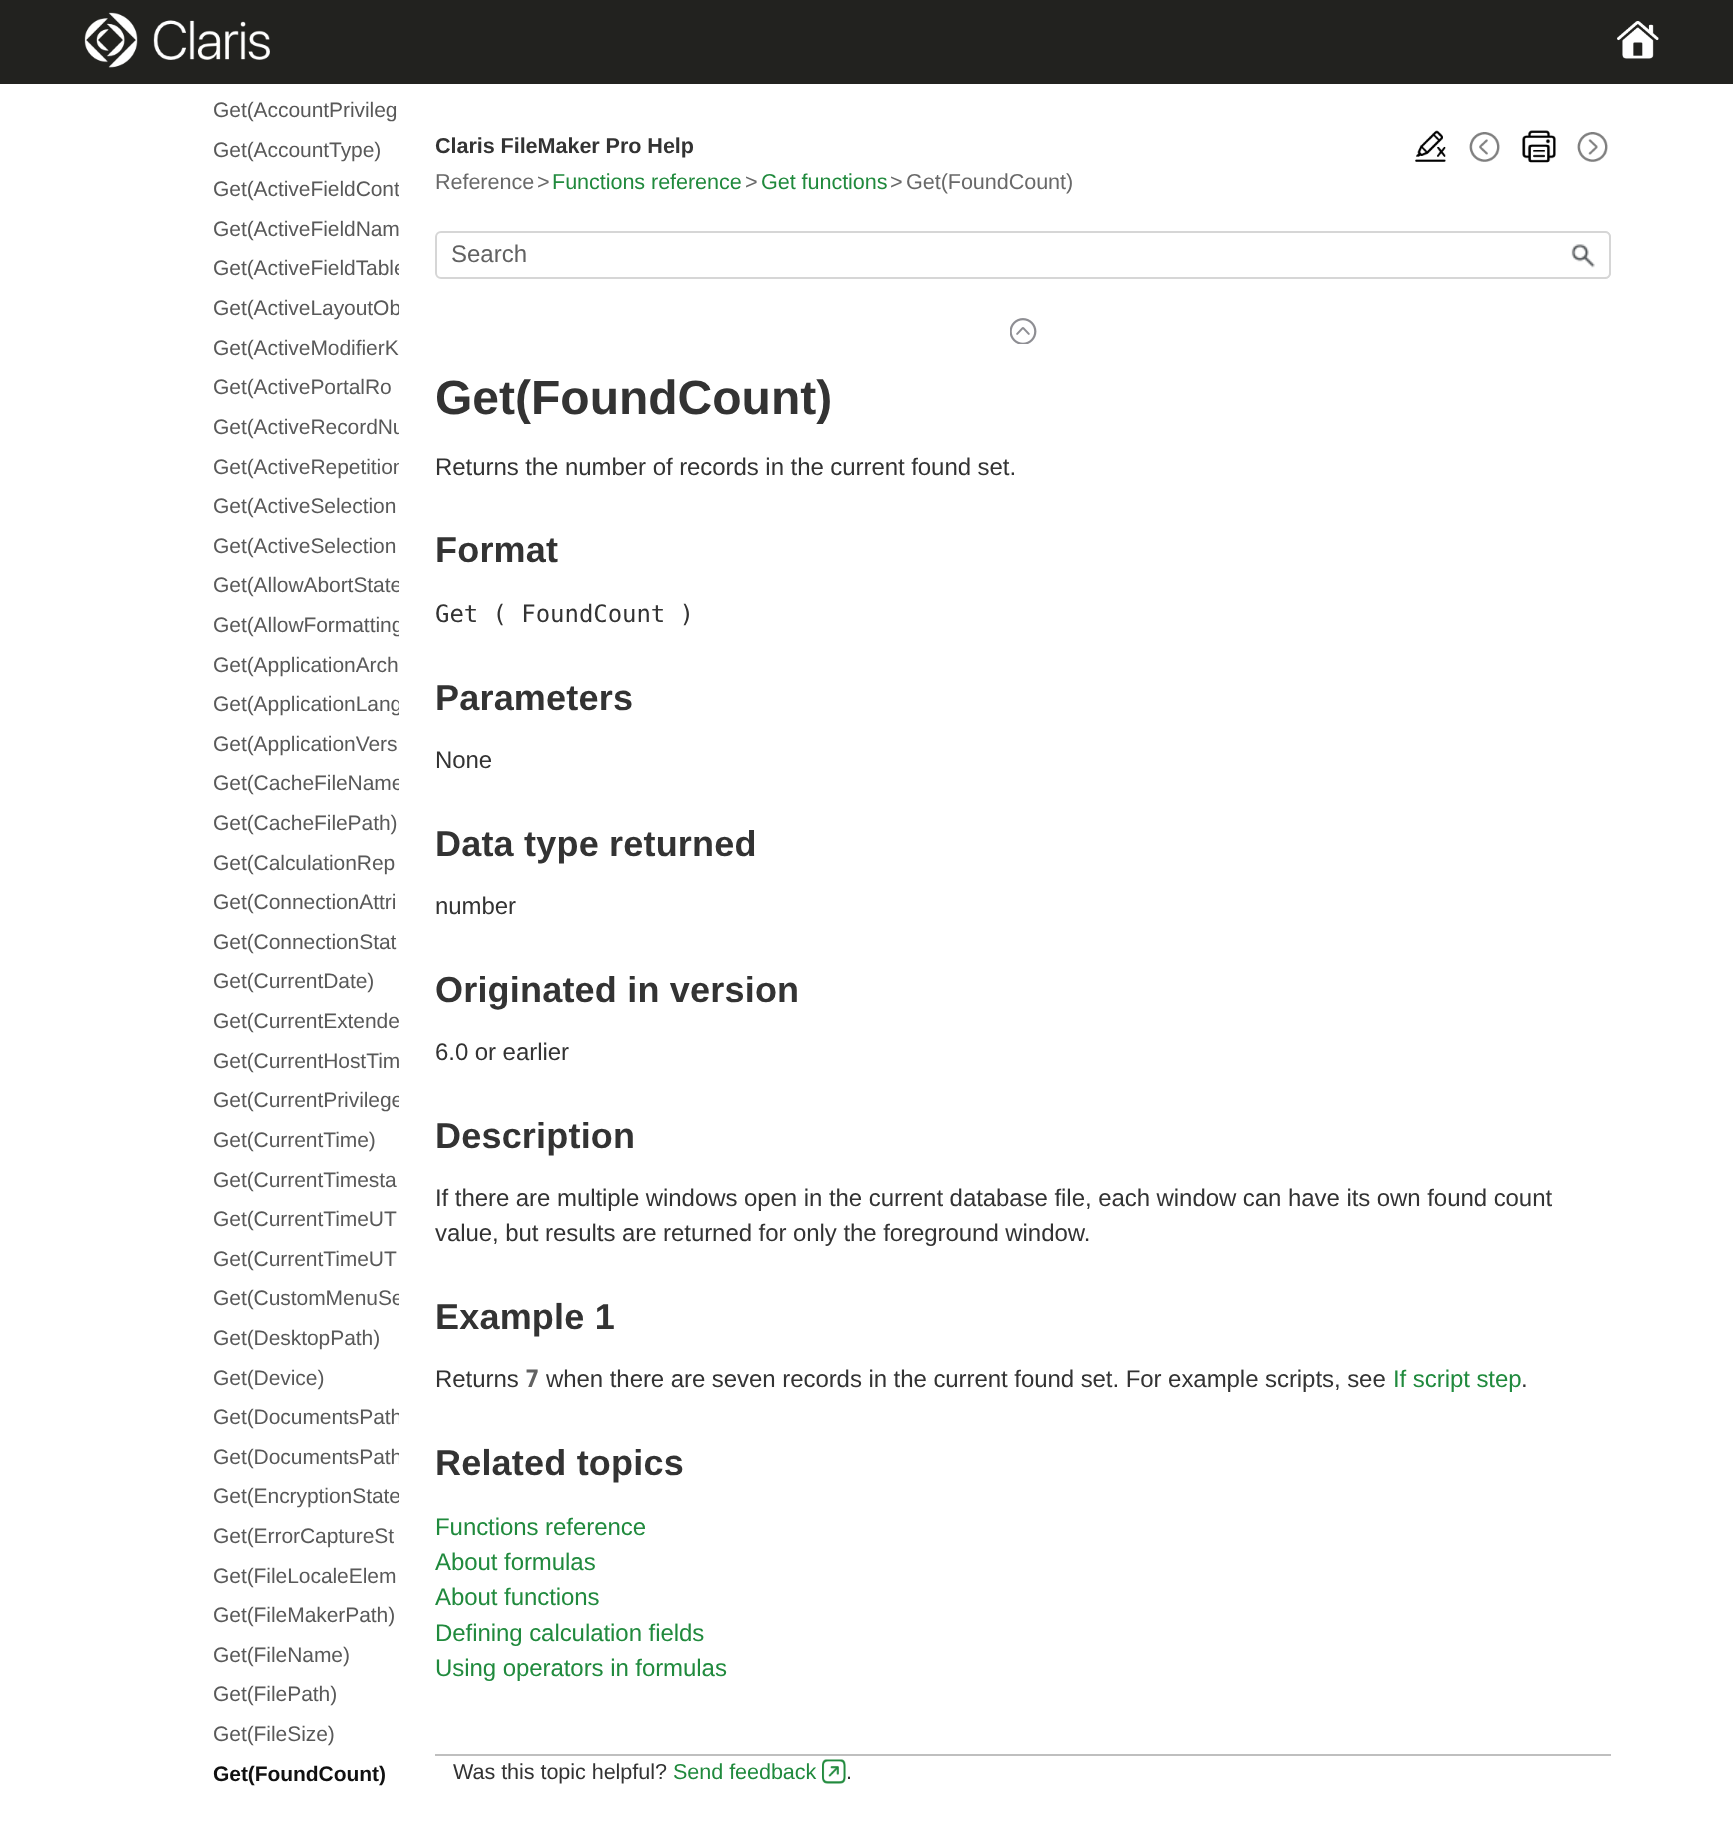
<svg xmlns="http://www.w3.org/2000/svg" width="1733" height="1827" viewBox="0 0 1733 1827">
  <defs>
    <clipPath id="clip1"><rect x="87" y="84" width="312" height="1707"/></clipPath>
  </defs>
  <rect width="100%" height="100%" fill="rgb(255,255,255)"/>
  <rect x="0" y="0" width="1733" height="84" fill="rgb(34,34,31)"/>
  <image x="84" y="12" width="186" height="56" href="pic1.png"/>
  <image x="1617" y="21" width="42" height="38" href="pic2.png"/>
  <g font-family="Liberation Sans" font-size="21" letter-spacing="-0.06" fill="rgb(89,89,89)">
    <text>
      <tspan x="213" y="117">Get(AccountPrivileg</tspan>
      <tspan x="213" y="157">Get(AccountType)</tspan>
    </text>
  </g>
  <g clip-path="url(#clip1)">
    <text x="213" y="196" font-family="Liberation Sans" font-size="21" letter-spacing="-0.06" fill="rgb(89,89,89)">Get(ActiveFieldCont</text>
  </g>
  <text x="213" y="236" font-family="Liberation Sans" font-size="21" letter-spacing="-0.06" fill="rgb(89,89,89)">Get(ActiveFieldNam</text>
  <g clip-path="url(#clip1)">
    <g font-family="Liberation Sans" font-size="21" letter-spacing="-0.06" fill="rgb(89,89,89)">
      <text>
        <tspan x="213" y="275">Get(ActiveFieldTable</tspan>
        <tspan x="213" y="315">Get(ActiveLayoutOb</tspan>
      </text>
    </g>
  </g>
  <g font-family="Liberation Sans" font-size="21" letter-spacing="-0.06" fill="rgb(89,89,89)">
    <text>
      <tspan x="213" y="355">Get(ActiveModifierK</tspan>
      <tspan x="213" y="394">Get(ActivePortalRo</tspan>
    </text>
  </g>
  <g clip-path="url(#clip1)">
    <g font-family="Liberation Sans" font-size="21" letter-spacing="-0.06" fill="rgb(89,89,89)">
      <text>
        <tspan x="213" y="434">Get(ActiveRecordNu</tspan>
        <tspan x="213" y="474">Get(ActiveRepetition</tspan>
      </text>
    </g>
  </g>
  <g font-family="Liberation Sans" font-size="21" letter-spacing="-0.06" fill="rgb(89,89,89)">
    <text>
      <tspan x="213" y="513">Get(ActiveSelection</tspan>
      <tspan x="213" y="553">Get(ActiveSelection</tspan>
    </text>
  </g>
  <g clip-path="url(#clip1)">
    <g font-family="Liberation Sans" font-size="21" letter-spacing="-0.06" fill="rgb(89,89,89)">
      <text>
        <tspan x="213" y="592">Get(AllowAbortState</tspan>
        <tspan x="213" y="632">Get(AllowFormatting</tspan>
      </text>
    </g>
  </g>
  <text x="213" y="672" font-family="Liberation Sans" font-size="21" letter-spacing="-0.06" fill="rgb(89,89,89)">Get(ApplicationArch</text>
  <g clip-path="url(#clip1)">
    <text x="213" y="711" font-family="Liberation Sans" font-size="21" letter-spacing="-0.06" fill="rgb(89,89,89)">Get(ApplicationLang</text>
  </g>
  <text x="213" y="751" font-family="Liberation Sans" font-size="21" letter-spacing="-0.06" fill="rgb(89,89,89)">Get(ApplicationVers</text>
  <g clip-path="url(#clip1)">
    <text x="213" y="790" font-family="Liberation Sans" font-size="21" letter-spacing="-0.06" fill="rgb(89,89,89)">Get(CacheFileName</text>
  </g>
  <g font-family="Liberation Sans" font-size="21" letter-spacing="-0.06" fill="rgb(89,89,89)">
    <text>
      <tspan x="213" y="830">Get(CacheFilePath)</tspan>
      <tspan x="213" y="870">Get(CalculationRep</tspan>
      <tspan x="213" y="909">Get(ConnectionAttri</tspan>
      <tspan x="213" y="949">Get(ConnectionStat</tspan>
      <tspan x="213" y="988">Get(CurrentDate)</tspan>
      <tspan x="213" y="1028">Get(CurrentExtende</tspan>
      <tspan x="213" y="1068">Get(CurrentHostTim</tspan>
    </text>
  </g>
  <g clip-path="url(#clip1)">
    <text x="213" y="1107" font-family="Liberation Sans" font-size="21" letter-spacing="-0.06" fill="rgb(89,89,89)">Get(CurrentPrivilege</text>
  </g>
  <g font-family="Liberation Sans" font-size="21" letter-spacing="-0.06" fill="rgb(89,89,89)">
    <text>
      <tspan x="213" y="1147">Get(CurrentTime)</tspan>
      <tspan x="213" y="1187">Get(CurrentTimesta</tspan>
      <tspan x="213" y="1226">Get(CurrentTimeUT</tspan>
      <tspan x="213" y="1266">Get(CurrentTimeUT</tspan>
    </text>
  </g>
  <g clip-path="url(#clip1)">
    <text x="213" y="1305" font-family="Liberation Sans" font-size="21" letter-spacing="-0.06" fill="rgb(89,89,89)">Get(CustomMenuSe</text>
  </g>
  <g font-family="Liberation Sans" font-size="21" letter-spacing="-0.06" fill="rgb(89,89,89)">
    <text>
      <tspan x="213" y="1345">Get(DesktopPath)</tspan>
      <tspan x="213" y="1385">Get(Device)</tspan>
    </text>
  </g>
  <g clip-path="url(#clip1)">
    <g font-family="Liberation Sans" font-size="21" letter-spacing="-0.06" fill="rgb(89,89,89)">
      <text>
        <tspan x="213" y="1424">Get(DocumentsPath</tspan>
        <tspan x="213" y="1464">Get(DocumentsPath</tspan>
        <tspan x="213" y="1503">Get(EncryptionState</tspan>
      </text>
    </g>
  </g>
  <g font-family="Liberation Sans" font-size="21" letter-spacing="-0.06" fill="rgb(89,89,89)">
    <text>
      <tspan x="213" y="1543">Get(ErrorCaptureSt</tspan>
      <tspan x="213" y="1583">Get(FileLocaleElem</tspan>
      <tspan x="213" y="1622">Get(FileMakerPath)</tspan>
      <tspan x="213" y="1662">Get(FileName)</tspan>
      <tspan x="213" y="1701">Get(FilePath)</tspan>
      <tspan x="213" y="1741">Get(FileSize)</tspan>
    </text>
  </g>
  <text x="213" y="1781" font-family="Liberation Sans" font-size="21" font-weight="bold" letter-spacing="-0.06" fill="rgb(17,17,17)">Get(FoundCount)</text>
  <text x="435" y="153" font-family="Liberation Sans" font-size="21.6" font-weight="bold" letter-spacing="-0.06" fill="rgb(51,51,51)">Claris FileMaker Pro Help</text>
  <image x="1415" y="130" width="31" height="32" href="pic3.png"/>
  <image x="1469" y="132" width="31" height="30" href="pic4.png"/>
  <image x="1522" y="130" width="34" height="33" href="pic5.png"/>
  <image x="1577" y="132" width="31" height="30" href="pic6.png"/>
  <g font-family="Liberation Sans" font-size="21.6" letter-spacing="-0.06" fill="rgb(105,105,105)">
    <text x="435" y="189">Reference</text>
    <text x="537" y="189">&gt;</text>
  </g>
  <text x="552" y="189" font-family="Liberation Sans" font-size="21.6" letter-spacing="-0.06" fill="rgb(32,138,61)">Functions reference</text>
  <text x="745" y="189" font-family="Liberation Sans" font-size="21.6" letter-spacing="-0.06" fill="rgb(105,105,105)">&gt;</text>
  <text x="761" y="189" font-family="Liberation Sans" font-size="21.6" letter-spacing="-0.06" fill="rgb(32,138,61)">Get functions</text>
  <g font-family="Liberation Sans" font-size="21.6" letter-spacing="-0.06" fill="rgb(105,105,105)">
    <text x="890" y="189">&gt;</text>
    <text x="906" y="189">Get(FoundCount)</text>
  </g>
  <rect x="436" y="232" width="1174" height="46" rx="5" fill="none" stroke="rgb(214,214,214)" stroke-width="2"/>
  <text x="451" y="262" font-family="Liberation Sans" font-size="24" fill="rgb(98,98,98)">Search</text>
  <image x="1571" y="244" width="24" height="24" href="pic7.png"/>
  <path d="M1557 231H1605C1608 231 1611 234 1611 237V273C1611 276 1608 279 1605 279H1557ZM1557 232H1605C1607 232 1610 235 1610 237V273C1610 275 1607 278 1605 278H1557Z" fill="rgb(214,214,214)" fill-rule="evenodd"/>
  <image x="1010" y="318" width="27" height="26" href="pic8.png"/>
  <text x="435" y="414" font-family="Liberation Sans" font-size="48" font-weight="bold" fill="rgb(51,51,51)">Get(FoundCount)</text>
  <text x="435" y="475" font-family="Liberation Sans" font-size="24" letter-spacing="-0.06" fill="rgb(51,51,51)">Returns the number of records in the current found set.</text>
  <text x="435" y="562" font-family="Liberation Sans" font-size="36" font-weight="bold" letter-spacing="0.2" fill="rgb(51,51,51)">Format</text>
  <text x="435" y="622" font-family="DejaVu Sans Mono" font-size="24" letter-spacing="-0.06" fill="rgb(51,51,51)">Get ( FoundCount )</text>
  <text x="435" y="710" font-family="Liberation Sans" font-size="36" font-weight="bold" letter-spacing="0.2" fill="rgb(51,51,51)">Parameters</text>
  <text x="435" y="768" font-family="Liberation Sans" font-size="24" letter-spacing="-0.06" fill="rgb(51,51,51)">None</text>
  <text x="435" y="856" font-family="Liberation Sans" font-size="36" font-weight="bold" letter-spacing="0.2" fill="rgb(51,51,51)">Data type returned</text>
  <text x="435" y="914" font-family="Liberation Sans" font-size="24" letter-spacing="-0.06" fill="rgb(51,51,51)">number</text>
  <text x="435" y="1002" font-family="Liberation Sans" font-size="36" font-weight="bold" letter-spacing="0.2" fill="rgb(51,51,51)">Originated in version</text>
  <text x="435" y="1060" font-family="Liberation Sans" font-size="24" letter-spacing="-0.06" fill="rgb(51,51,51)">6.0 or earlier</text>
  <text x="435" y="1148" font-family="Liberation Sans" font-size="36" font-weight="bold" letter-spacing="0.2" fill="rgb(51,51,51)">Description</text>
  <g font-family="Liberation Sans" font-size="24" letter-spacing="-0.06" fill="rgb(51,51,51)">
    <text>
      <tspan x="435" y="1206">If there are multiple windows open in the current database file, each window can have its own found count</tspan>
      <tspan x="435" y="1241">value, but results are returned for only the foreground window.</tspan>
    </text>
  </g>
  <text x="435" y="1329" font-family="Liberation Sans" font-size="36" font-weight="bold" letter-spacing="0.2" fill="rgb(51,51,51)">Example 1</text>
  <text x="435" y="1387" font-family="Liberation Sans" font-size="24" letter-spacing="-0.06" fill="rgb(51,51,51)">Returns</text>
  <text x="525" y="1387" font-family="DejaVu Sans Mono" font-size="24" font-weight="bold" letter-spacing="-0.06" fill="rgb(98,98,98)">7</text>
  <text x="546" y="1387" font-family="Liberation Sans" font-size="24" letter-spacing="-0.06" fill="rgb(51,51,51)">when there are seven records in the current found set. For example scripts, see</text>
  <text x="1393" y="1387" font-family="Liberation Sans" font-size="24" letter-spacing="-0.06" fill="rgb(32,138,61)">If script step</text>
  <text x="1521" y="1387" font-family="Liberation Sans" font-size="24" letter-spacing="-0.06" fill="rgb(51,51,51)">.</text>
  <text x="435" y="1475" font-family="Liberation Sans" font-size="36" font-weight="bold" letter-spacing="0.2" fill="rgb(51,51,51)">Related topics</text>
  <g font-family="Liberation Sans" font-size="24" letter-spacing="-0.06" fill="rgb(32,138,61)">
    <text>
      <tspan x="435" y="1535">Functions reference</tspan>
      <tspan x="435" y="1570">About formulas</tspan>
      <tspan x="435" y="1605">About functions</tspan>
      <tspan x="435" y="1641">Defining calculation fields</tspan>
      <tspan x="435" y="1676">Using operators in formulas</tspan>
    </text>
  </g>
  <rect x="435" y="1754" width="1176" height="2" fill="rgb(191,191,191)"/>
  <text x="453" y="1779" font-family="Liberation Sans" font-size="21.6" letter-spacing="-0.06" fill="rgb(51,51,51)">Was this topic helpful?</text>
  <text x="673" y="1779" font-family="Liberation Sans" font-size="21.6" letter-spacing="-0.06" fill="rgb(32,138,61)">Send feedback</text>
  <image x="822" y="1759" width="24" height="25" href="pic9.png"/>
  <text x="846" y="1779" font-family="Liberation Sans" font-size="21.6" letter-spacing="-0.06" fill="rgb(51,51,51)">.</text>
</svg>
